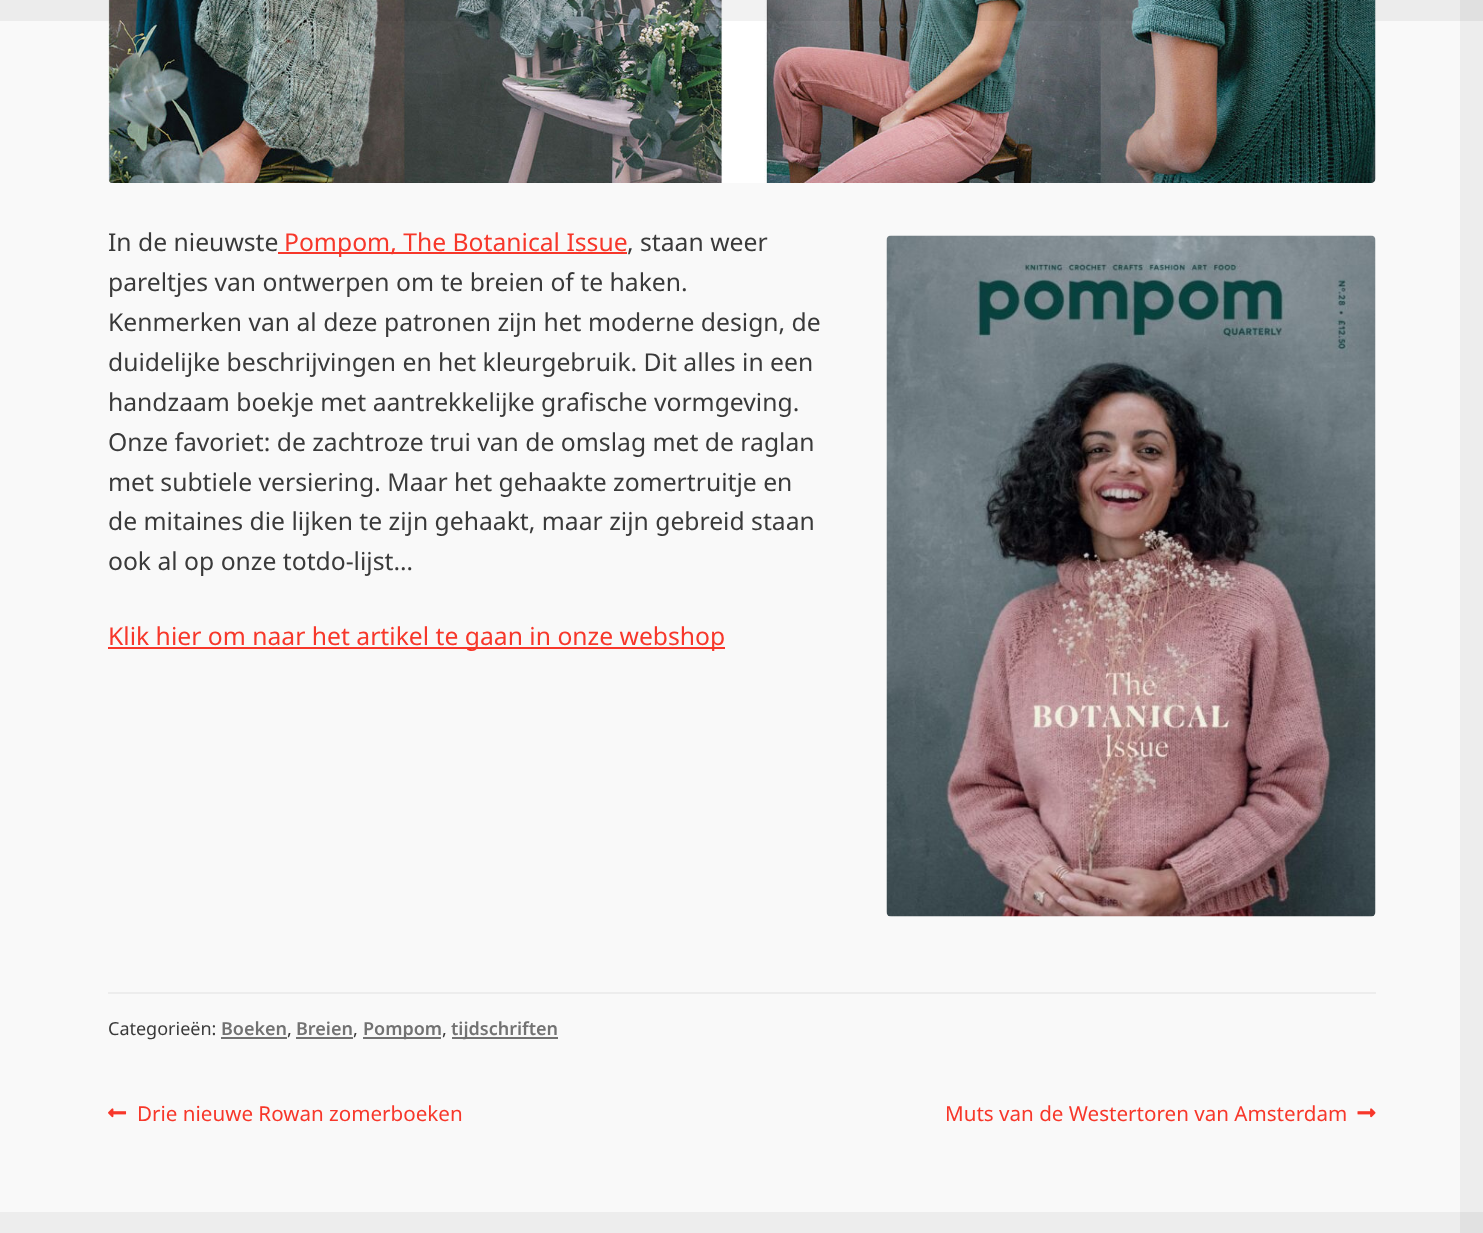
<svg xmlns="http://www.w3.org/2000/svg" width="1483" height="1233" viewBox="0 0 1483 1233">
  <rect width="100%" height="100%" fill="rgb(249,249,249)"/>
  <image x="108" y="0" width="1268" height="183" href="pic1.png"/>
  <rect x="1460" y="0" width="23" height="1212" fill="rgb(237,237,237)"/>
  <rect x="0" y="0" width="1483" height="21" fill="rgba(0,0,0,0.05)"/>
  <rect x="0" y="1212" width="1460" height="21" fill="rgb(237,237,237)"/>
  <text x="108" y="251" font-family="Noto Sans" font-size="24.7" fill="rgb(58,58,58)">In de nieuwste</text>
  <rect x="278" y="252" width="349" height="2" fill="rgb(247,55,42)"/>
  <text x="284" y="251" font-family="Noto Sans" font-size="24.7" fill="rgb(247,55,42)">Pompom, The Botanical Issue</text>
  <g font-family="Noto Sans" font-size="24.7" fill="rgb(58,58,58)">
    <text x="627" y="251">, staan weer</text>
    <text>
      <tspan x="108" y="291">pareltjes van ontwerpen om te breien of te haken.</tspan>
      <tspan x="108" y="331">Kenmerken van al deze patronen zijn het moderne design, de</tspan>
      <tspan x="108" y="371">duidelijke beschrijvingen en het kleurgebruik. Dit alles in een</tspan>
      <tspan x="108" y="411">handzaam boekje met aantrekkelijke grafische vormgeving.</tspan>
      <tspan x="108" y="451">Onze favoriet: de zachtroze trui van de omslag met de raglan</tspan>
      <tspan x="108" y="491">met subtiele versiering. Maar het gehaakte zomertruitje en</tspan>
      <tspan x="108" y="530">de mitaines die lijken te zijn gehaakt, maar zijn gebreid staan</tspan>
      <tspan x="108" y="570">ook al op onze totdo-lijst…</tspan>
    </text>
  </g>
  <image x="886" y="235" width="490" height="682" href="pic2.png"/>
  <rect x="108" y="647" width="617" height="2" fill="rgb(247,55,42)"/>
  <text x="108" y="645" font-family="Noto Sans" font-size="24.7" fill="rgb(247,55,42)">Klik hier om naar het artikel te gaan in onze webshop</text>
  <rect x="108" y="992" width="1268" height="2" fill="rgb(237,237,237)"/>
  <text x="108" y="1035" font-family="Noto Sans" font-size="18" fill="rgb(58,58,58)">Categorieën:</text>
  <text x="221" y="1035" font-family="Noto Sans" font-size="18" font-weight="600" fill="rgb(114,114,114)">Boeken</text>
  <rect x="221" y="1037" width="66" height="2" fill="rgb(114,114,114)"/>
  <text x="287" y="1035" font-family="Noto Sans" font-size="18" fill="rgb(58,58,58)">,</text>
  <text x="296" y="1035" font-family="Noto Sans" font-size="18" font-weight="600" fill="rgb(114,114,114)">Breien</text>
  <rect x="296" y="1037" width="57" height="2" fill="rgb(114,114,114)"/>
  <text x="353" y="1035" font-family="Noto Sans" font-size="18" fill="rgb(58,58,58)">,</text>
  <rect x="363" y="1037" width="78" height="2" fill="rgb(114,114,114)"/>
  <text x="363" y="1035" font-family="Noto Sans" font-size="18" font-weight="600" fill="rgb(114,114,114)">Pompom</text>
  <text x="442" y="1035" font-family="Noto Sans" font-size="18" fill="rgb(58,58,58)">,</text>
  <rect x="452" y="1037" width="106" height="2" fill="rgb(114,114,114)"/>
  <text x="451" y="1035" font-family="Noto Sans" font-size="18" font-weight="600" fill="rgb(114,114,114)">tijdschriften</text>
  <image x="108" y="1108" width="19" height="10" href="pic3.png"/>
  <g font-family="Noto Sans" font-size="20.6" fill="rgb(247,55,42)">
    <text x="137" y="1121">Drie nieuwe Rowan zomerboeken</text>
    <text x="945" y="1121">Muts van de Westertoren van Amsterdam</text>
  </g>
  <image x="1357" y="1108" width="19" height="10" href="pic4.png"/>
  <rect x="1460" y="1212" width="23" height="21" fill="rgb(225,225,225)"/>
</svg>
